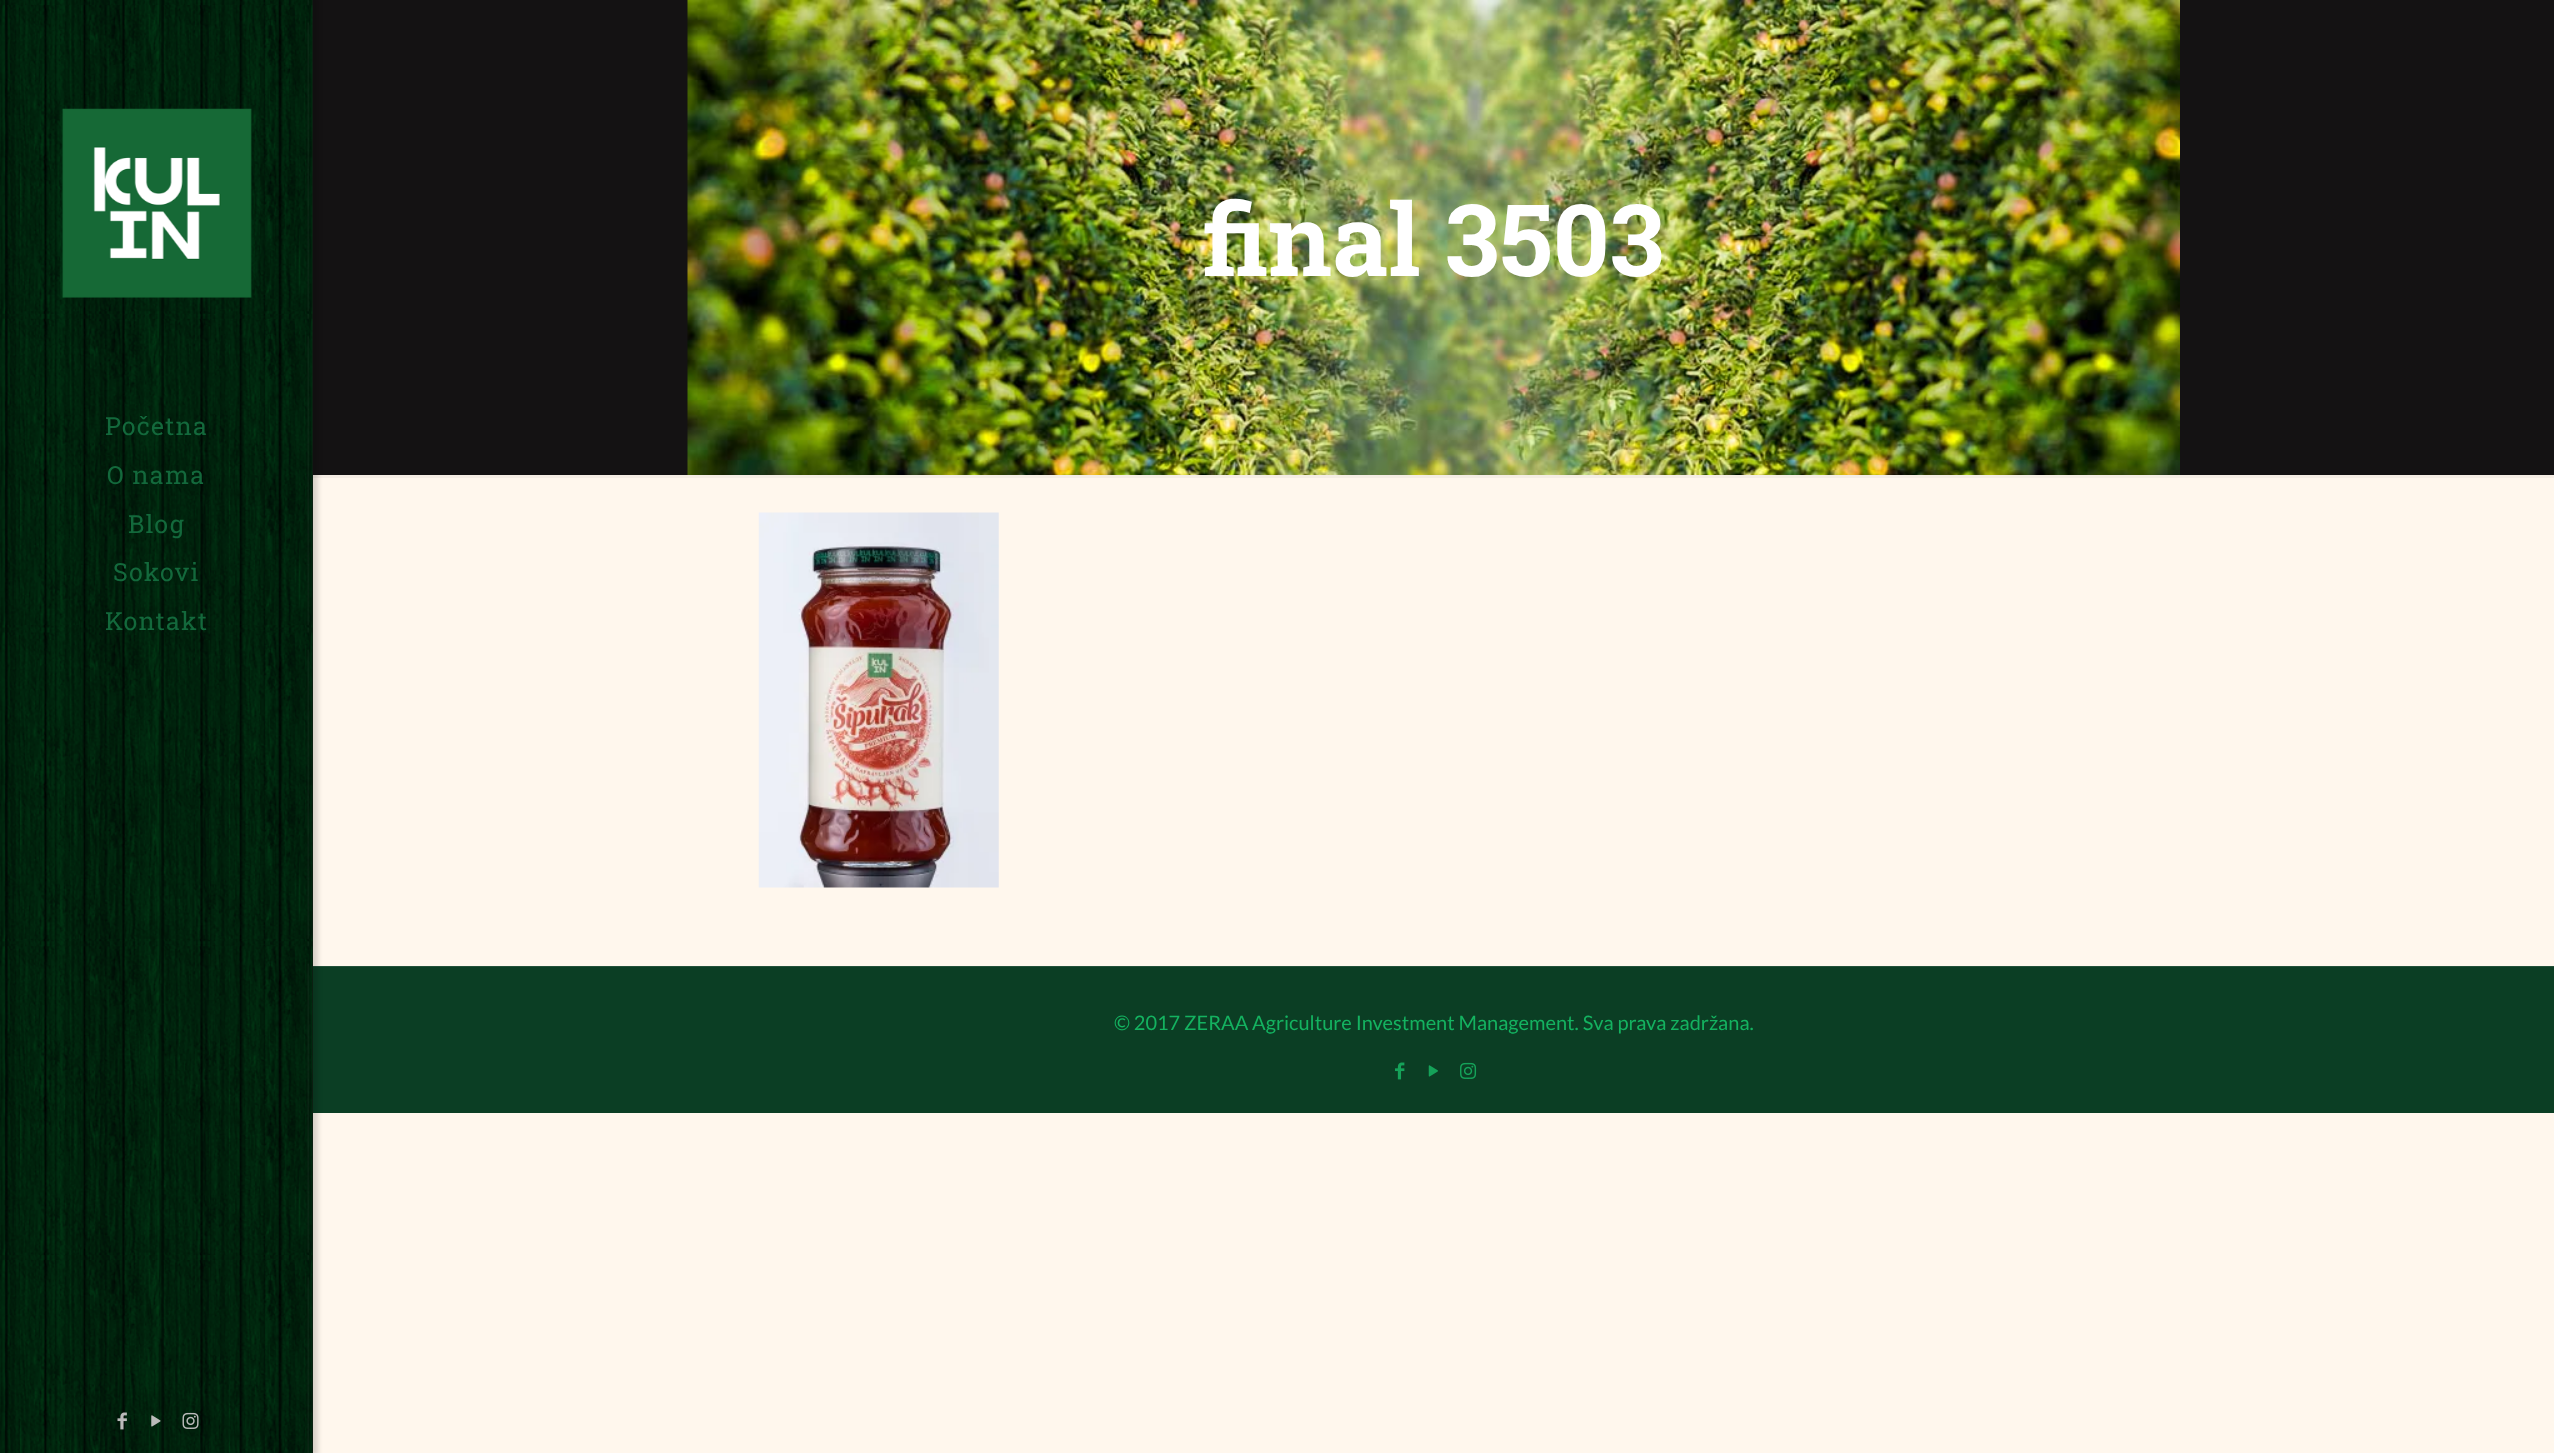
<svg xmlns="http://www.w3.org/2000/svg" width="2554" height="1453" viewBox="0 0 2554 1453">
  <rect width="100%" height="100%" fill="rgb(255,247,237)"/>
  <rect x="313" y="0" width="2241" height="475" fill="rgb(20,18,19)"/>
  <rect x="313" y="475" width="2241" height="3" fill="rgb(245,237,228)"/>
  <rect x="313" y="967" width="2241" height="146" fill="rgb(11,62,36)"/>
  <rect x="313" y="966" width="2241" height="1" fill="rgb(35,81,58)"/>
  <rect x="0" y="-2" width="318" height="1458" fill="rgba(0,0,0,0.15)" filter="blur(2.5px)"/>
  <rect x="312" y="0" width="1" height="1453" fill="rgb(24,23,23)"/>
  <image x="0" y="0" width="313" height="1453" href="pic1.png"/>
  <image x="62" y="108" width="190" height="190" href="pic2.png"/>
  <text x="105" y="435" font-family="Roboto Slab" font-size="25" letter-spacing="1.25" fill="rgb(19,105,60)">Početna</text>
  <rect x="20" y="498" width="1" height="1" fill="rgba(0,0,0,0.05)"/>
  <g font-family="Roboto Slab" font-size="25" letter-spacing="1.25" fill="rgb(19,105,60)">
    <text x="107" y="484">O nama</text>
    <text x="128" y="533">Blog</text>
    <text x="113" y="581">Sokovi</text>
    <text x="105" y="630">Kontakt</text>
  </g>
  <image x="117" y="1412" width="10" height="18" href="pic3.png"/>
  <image x="151" y="1415" width="10" height="12" href="pic4.png"/>
  <image x="182" y="1412" width="17" height="17" href="pic5.png"/>
  <image x="687" y="0" width="1493" height="475" href="pic6.png"/>
  <text x="1203" y="276" font-family="Roboto Slab" font-size="100" font-weight="bold" fill="rgb(255,255,255)">final 3503</text>
  <image x="758" y="512" width="241" height="376" href="pic7.png"/>
  <text x="1114" y="1030" font-family="Lato" font-size="20" fill="rgb(20,178,96)">© 2017 ZERAA Agriculture Investment Management. Sva prava zadržana.</text>
  <image x="1395" y="1062" width="10" height="18" href="pic8.png"/>
  <image x="1428" y="1065" width="10" height="12" href="pic9.png"/>
  <image x="1460" y="1062" width="17" height="17" href="pic10.png"/>
</svg>
